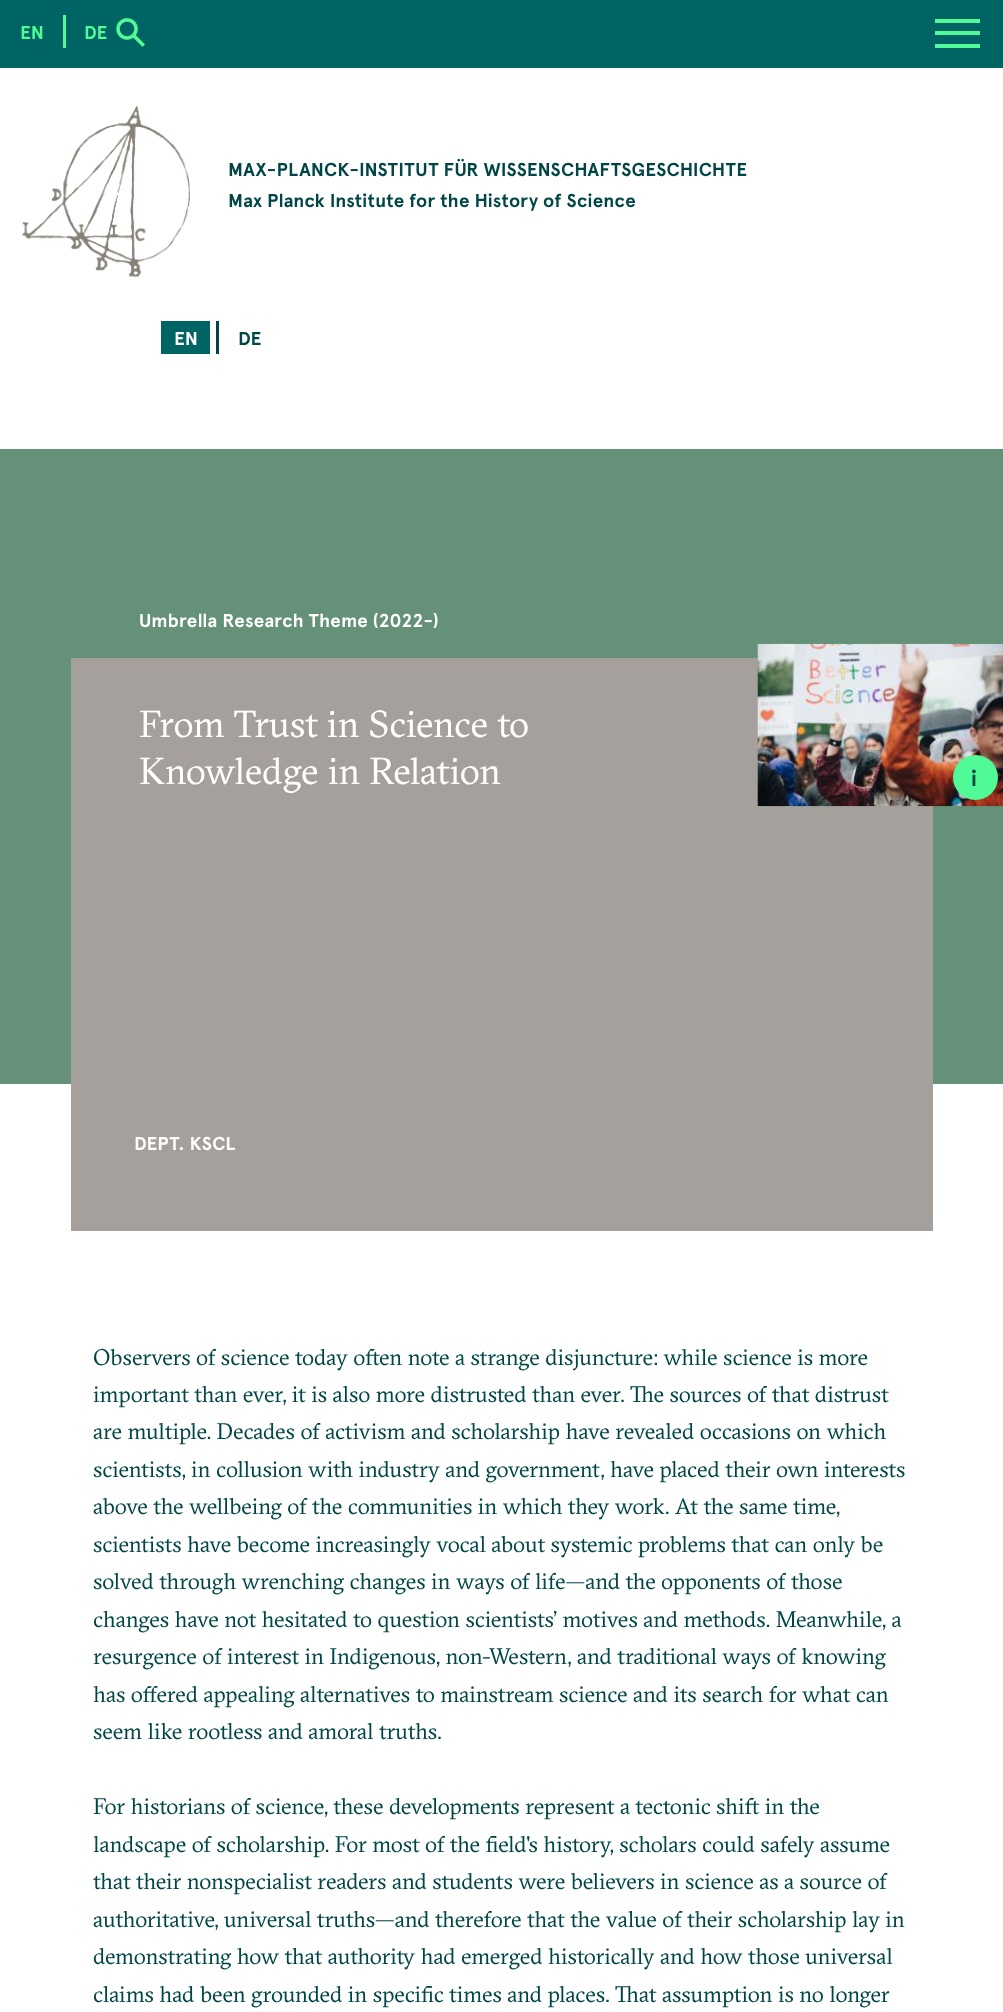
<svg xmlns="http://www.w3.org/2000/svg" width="1003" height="2012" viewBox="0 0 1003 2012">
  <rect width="100%" height="100%" fill="rgb(255,255,255)"/>
  <rect x="0" y="0" width="1003" height="68" fill="rgb(0,100,100)"/>
  <rect x="935" y="31" width="45" height="4" fill="rgb(80,250,150)"/>
  <rect x="935" y="19" width="45" height="4" fill="rgb(80,250,150)"/>
  <rect x="935" y="44" width="45" height="4" fill="rgb(80,250,150)"/>
  <rect x="63" y="15" width="3" height="33" fill="rgb(80,250,150)"/>
  <g font-family="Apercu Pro" font-size="18.75" font-weight="bold" letter-spacing="0.2" fill="rgb(80,250,150)">
    <text x="20" y="39">EN</text>
    <text x="84" y="39">DE</text>
  </g>
  <image x="116" y="18" width="29" height="29" href="pic1.png"/>
  <image x="22" y="106" width="168" height="171" href="pic2.png"/>
  <g font-family="Apercu Pro" font-size="18.75" font-weight="bold" letter-spacing="0.2" fill="rgb(0,70,70)">
    <text>
      <tspan x="228" y="176">MAX-PLANCK-INSTITUT FÜR WISSENSCHAFTSGESCHICHTE</tspan>
      <tspan x="228" y="207">Max Planck Institute for the History of Science</tspan>
    </text>
  </g>
  <rect x="216" y="321" width="3" height="33" fill="rgb(0,70,70)"/>
  <rect x="161" y="321" width="49" height="33" fill="rgb(0,100,100)"/>
  <text x="174" y="345" font-family="Apercu Pro" font-size="18.75" font-weight="bold" letter-spacing="0.2" fill="rgb(255,255,255)">EN</text>
  <text x="238" y="345" font-family="Apercu Pro" font-size="18.75" font-weight="bold" letter-spacing="0.2" fill="rgb(0,70,70)">DE</text>
  <rect x="0" y="449" width="1003" height="635" fill="rgb(100,145,120)"/>
  <rect x="71" y="658" width="862" height="573" fill="rgb(165,160,155)"/>
  <text x="139" y="627" font-family="Apercu Pro" font-size="18.75" font-weight="bold" letter-spacing="0.2" fill="rgb(255,255,255)">Umbrella Research Theme (2022-)</text>
  <g font-family="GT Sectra" font-size="37.5" fill="rgb(255,255,255)">
    <text>
      <tspan x="139" y="737">From Trust in Science to</tspan>
      <tspan x="139" y="784">Knowledge in Relation</tspan>
    </text>
  </g>
  <text x="134" y="1150" font-family="Apercu Pro" font-size="18.75" font-weight="bold" letter-spacing="0.2" fill="rgb(255,255,255)">DEPT. KSCL</text>
  <image x="757" y="643" width="246" height="164" href="pic3.png"/>
  <circle cx="975.5" cy="777.5" r="22.5" fill="rgb(80,250,150)"/>
  <text x="971" y="786" font-family="Apercu Pro" font-size="22.5" font-weight="bold" letter-spacing="1" fill="rgb(0,70,70)">i</text>
  <g font-family="GT Sectra" font-size="22.5" fill="rgb(0,70,70)">
    <text>
      <tspan x="93" y="1365">Observers of science today often note a strange disjuncture: while science is more</tspan>
      <tspan x="93" y="1402">important than ever, it is also more distrusted than ever. The sources of that distrust</tspan>
      <tspan x="93" y="1439">are multiple. Decades of activism and scholarship have revealed occasions on which</tspan>
      <tspan x="93" y="1477">scientists, in collusion with industry and government, have placed their own interests</tspan>
      <tspan x="93" y="1514">above the wellbeing of the communities in which they work. At the same time,</tspan>
      <tspan x="93" y="1552">scientists have become increasingly vocal about systemic problems that can only be</tspan>
      <tspan x="93" y="1589">solved through wrenching changes in ways of life—and the opponents of those</tspan>
      <tspan x="93" y="1627">changes have not hesitated to question scientists’ motives and methods. Meanwhile, a</tspan>
      <tspan x="93" y="1664">resurgence of interest in Indigenous, non-Western, and traditional ways of knowing</tspan>
      <tspan x="93" y="1702">has offered appealing alternatives to mainstream science and its search for what can</tspan>
      <tspan x="93" y="1739">seem like rootless and amoral truths.</tspan>
    </text>
    <text>
      <tspan x="93" y="1814">For historians of science, these developments represent a tectonic shift in the</tspan>
      <tspan x="93" y="1852">landscape of scholarship. For most of the field's history, scholars could safely assume</tspan>
      <tspan x="93" y="1889">that their nonspecialist readers and students were believers in science as a source of</tspan>
      <tspan x="93" y="1927">authoritative, universal truths—and therefore that the value of their scholarship lay in</tspan>
      <tspan x="93" y="1964">demonstrating how that authority had emerged historically and how those universal</tspan>
      <tspan x="93" y="2002">claims had been grounded in specific times and places. That assumption is no longer</tspan>
    </text>
  </g>
</svg>
